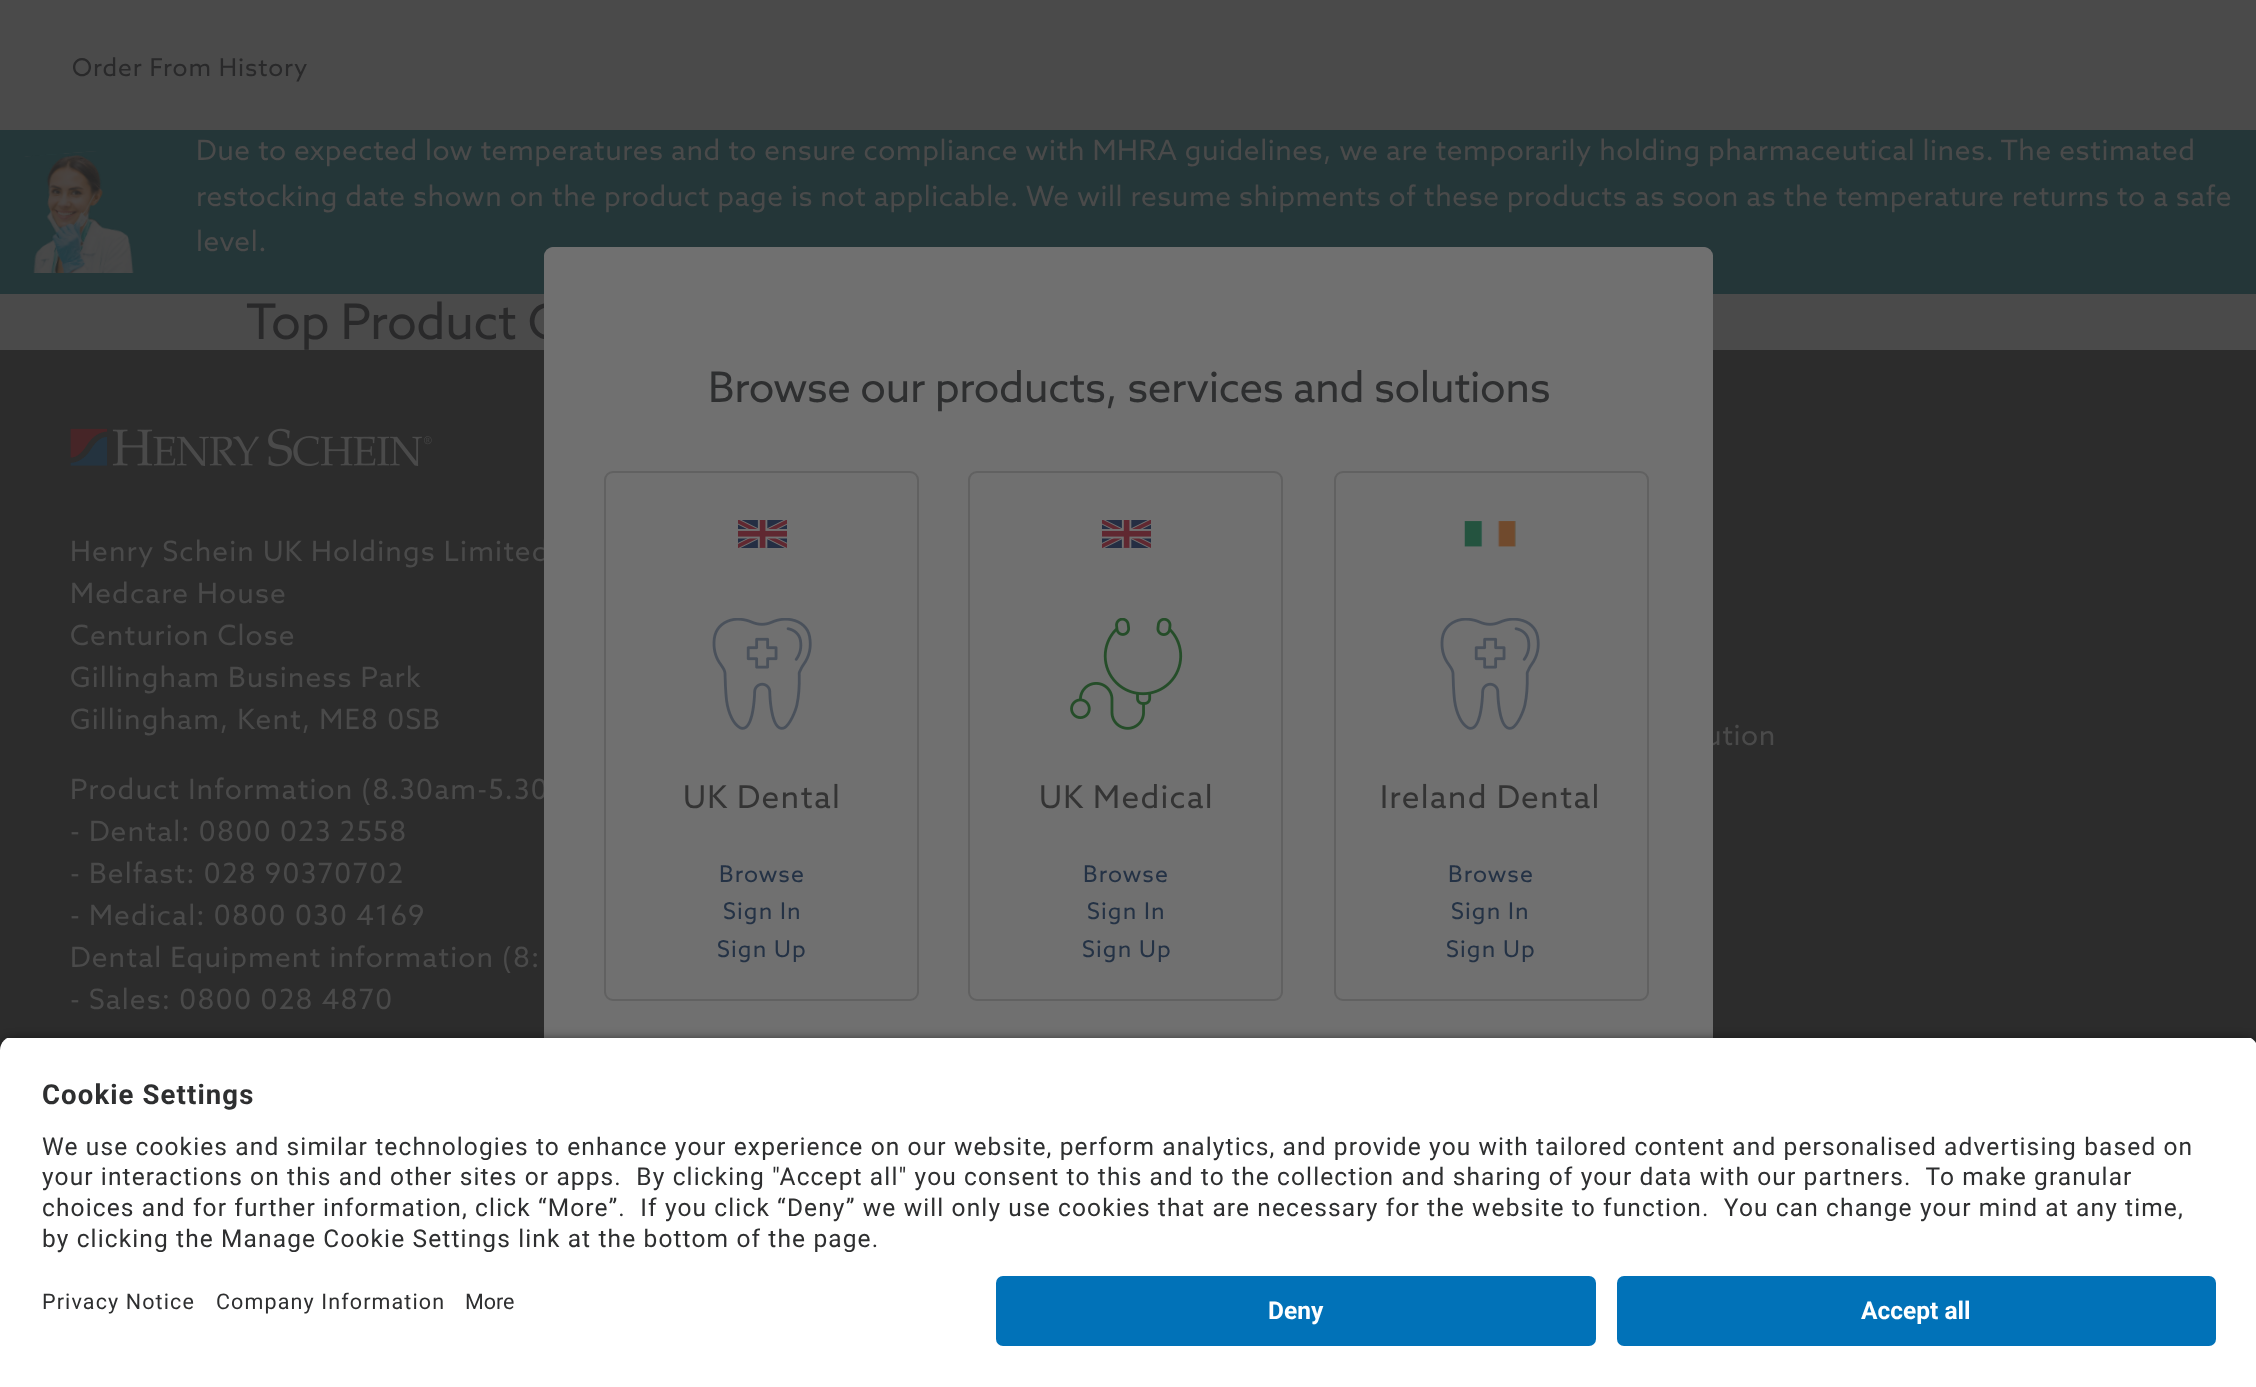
<svg xmlns="http://www.w3.org/2000/svg" width="2256" height="1387" viewBox="0 0 2256 1387">
  <defs>
    <clipPath id="clip1"><path d="M14 1036H2244C2251.5 1036 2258 1042.5 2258 1050V1262H0V1050C0 1042.5 6.5 1036 14 1036Z"/></clipPath>
  </defs>
  <rect width="100%" height="100%" fill="rgb(74,74,74)"/>
  <text x="72" y="76" font-family="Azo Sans" font-size="24.5" letter-spacing="0.9" fill="rgb(41,41,42)">Order From History</text>
  <rect x="0" y="130" width="2256" height="164" fill="rgb(36,54,56)"/>
  <image x="24" y="151" width="110" height="122" href="pic1.png"/>
  <g font-family="Azo Sans" font-size="28" letter-spacing="0.56" fill="rgb(74,74,74)">
    <text>
      <tspan x="196" y="160">Due to expected low temperatures and to ensure compliance with MHRA guidelines, we are temporarily holding pharmaceutical lines. The estimated</tspan>
      <tspan x="196" y="206">restocking date shown on the product page is not applicable. We will resume shipments of these products as soon as the temperature returns to a safe</tspan>
      <tspan x="196" y="251">level.</tspan>
    </text>
  </g>
  <text x="246" y="339" font-family="Azo Sans" font-size="49" letter-spacing="-0.5" fill="rgb(41,41,42)">Top Product C</text>
  <rect x="0" y="350" width="2256" height="700" fill="rgb(44,44,44)"/>
  <image x="70" y="428" width="362" height="39" href="pic2.png"/>
  <g font-family="Azo Sans" font-size="28" letter-spacing="1.12" fill="rgb(74,74,74)">
    <text>
      <tspan x="70" y="561">Henry Schein UK Holdings Limited</tspan>
      <tspan x="70" y="603">Medcare House</tspan>
      <tspan x="70" y="645">Centurion Close</tspan>
      <tspan x="70" y="687">Gillingham Business Park</tspan>
      <tspan x="70" y="729">Gillingham, Kent, ME8 0SB</tspan>
    </text>
    <text>
      <tspan x="70" y="799">Product Information (8.30am-5.30</tspan>
      <tspan x="70" y="841">- Dental: 0800 023 2558</tspan>
      <tspan x="70" y="883">- Belfast: 028 90370702</tspan>
      <tspan x="70" y="925">- Medical: 0800 030 4169</tspan>
      <tspan x="70" y="967">Dental Equipment information (8:</tspan>
      <tspan x="70" y="1009">- Sales: 0800 028 4870</tspan>
    </text>
  </g>
  <text x="1705" y="745" font-family="Azo Sans" font-size="28" letter-spacing="0.56" fill="rgb(74,74,74)">ution</text>
  <rect x="544" y="247" width="1169" height="894" rx="9" fill="rgb(112,112,112)"/>
  <rect x="544" y="247" width="1169" height="894" rx="11" fill="rgb(112,112,112)"/>
  <text x="708" y="402" font-family="Azo Sans" font-size="42" letter-spacing="-0.4" fill="rgb(46,47,48)">Browse our products, services and solutions</text>
  <rect x="605" y="472" width="313" height="528" rx="8" fill="none" stroke="rgb(97,97,97)" stroke-width="2"/>
  <image x="738" y="520" width="49" height="28" href="pic3.png"/>
  <image x="712" y="618" width="100" height="112" href="pic4.png"/>
  <text x="683" y="808" font-family="Azo Sans" font-size="31.5" letter-spacing="1.25" fill="rgb(52,52,52)">UK Dental</text>
  <g font-family="Azo Sans" font-size="23" letter-spacing="1.12" fill="rgb(36,50,69)">
    <text x="719" y="882">Browse</text>
    <text x="723" y="919">Sign In</text>
    <text x="717" y="957">Sign Up</text>
  </g>
  <rect x="969" y="472" width="313" height="528" rx="8" fill="none" stroke="rgb(97,97,97)" stroke-width="2"/>
  <image x="1102" y="520" width="49" height="28" href="pic3.png"/>
  <image x="1070" y="618" width="113" height="112" href="pic5.png"/>
  <text x="1039" y="808" font-family="Azo Sans" font-size="31.5" letter-spacing="1.25" fill="rgb(52,52,52)">UK Medical</text>
  <g font-family="Azo Sans" font-size="23" letter-spacing="1.12" fill="rgb(36,50,69)">
    <text x="1083" y="882">Browse</text>
    <text x="1087" y="919">Sign In</text>
    <text x="1082" y="957">Sign Up</text>
  </g>
  <rect x="1335" y="472" width="313" height="528" rx="8" fill="none" stroke="rgb(97,97,97)" stroke-width="2"/>
  <image x="1464" y="521" width="52" height="26" href="pic6.png"/>
  <image x="1440" y="618" width="100" height="112" href="pic4.png"/>
  <text x="1380" y="808" font-family="Azo Sans" font-size="31.5" letter-spacing="1.25" fill="rgb(52,52,52)">Ireland Dental</text>
  <g font-family="Azo Sans" font-size="23" letter-spacing="1.12" fill="rgb(36,50,69)">
    <text x="1448" y="882">Browse</text>
    <text x="1451" y="919">Sign In</text>
    <text x="1446" y="957">Sign Up</text>
  </g>
  <rect x="0" y="1041" width="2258" height="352" rx="14" fill="rgba(0,0,0,0.8)" filter="blur(6px)"/>
  <g clip-path="url(#clip1)">
    <rect x="0" y="1038" width="2256" height="224" fill="rgb(255,255,255)"/>
  </g>
  <text x="42" y="1104" font-family="Roboto" font-size="27.5" font-weight="bold" letter-spacing="1.12" fill="rgb(46,47,48)">Cookie Settings</text>
  <g font-family="Roboto" font-size="24.5" letter-spacing="1.12" fill="rgb(46,47,48)">
    <text xml:space="preserve"><tspan x="42" y="1155">We use cookies and similar technologies to enhance your experience on our website, perform analytics, and provide you with tailored content and personalised advertising based on</tspan><tspan x="42" y="1185">your interactions on this and other sites or apps.  By clicking "Accept all" you consent to this and to the collection and sharing of your data with our partners.  To make granular</tspan><tspan x="42" y="1216">choices and for further information, click “More”.  If you click “Deny” we will only use cookies that are necessary for the website to function.  You can change your mind at any time,</tspan><tspan x="42" y="1247">by clicking the Manage Cookie Settings link at the bottom of the page.</tspan></text>
  </g>
  <rect x="0" y="1262" width="2256" height="125" fill="rgb(255,255,255)"/>
  <g font-family="Roboto" font-size="21.5" letter-spacing="1.12" fill="rgb(46,47,48)">
    <text x="42" y="1309">Privacy Notice</text>
    <text x="216" y="1309">Company Information</text>
  </g>
  <text x="465" y="1309" font-family="Roboto" font-size="21.5" fill="rgb(46,47,48)">More</text>
  <rect x="996" y="1276" width="600" height="70" rx="7" fill="rgb(1,114,184)"/>
  <text x="1268" y="1319" font-family="Roboto" font-size="24.5" font-weight="bold" fill="rgb(255,255,255)">Deny</text>
  <rect x="1617" y="1276" width="599" height="70" rx="7" fill="rgb(1,114,184)"/>
  <text x="1861" y="1319" font-family="Roboto" font-size="24.5" font-weight="bold" fill="rgb(255,255,255)">Accept all</text>
</svg>
